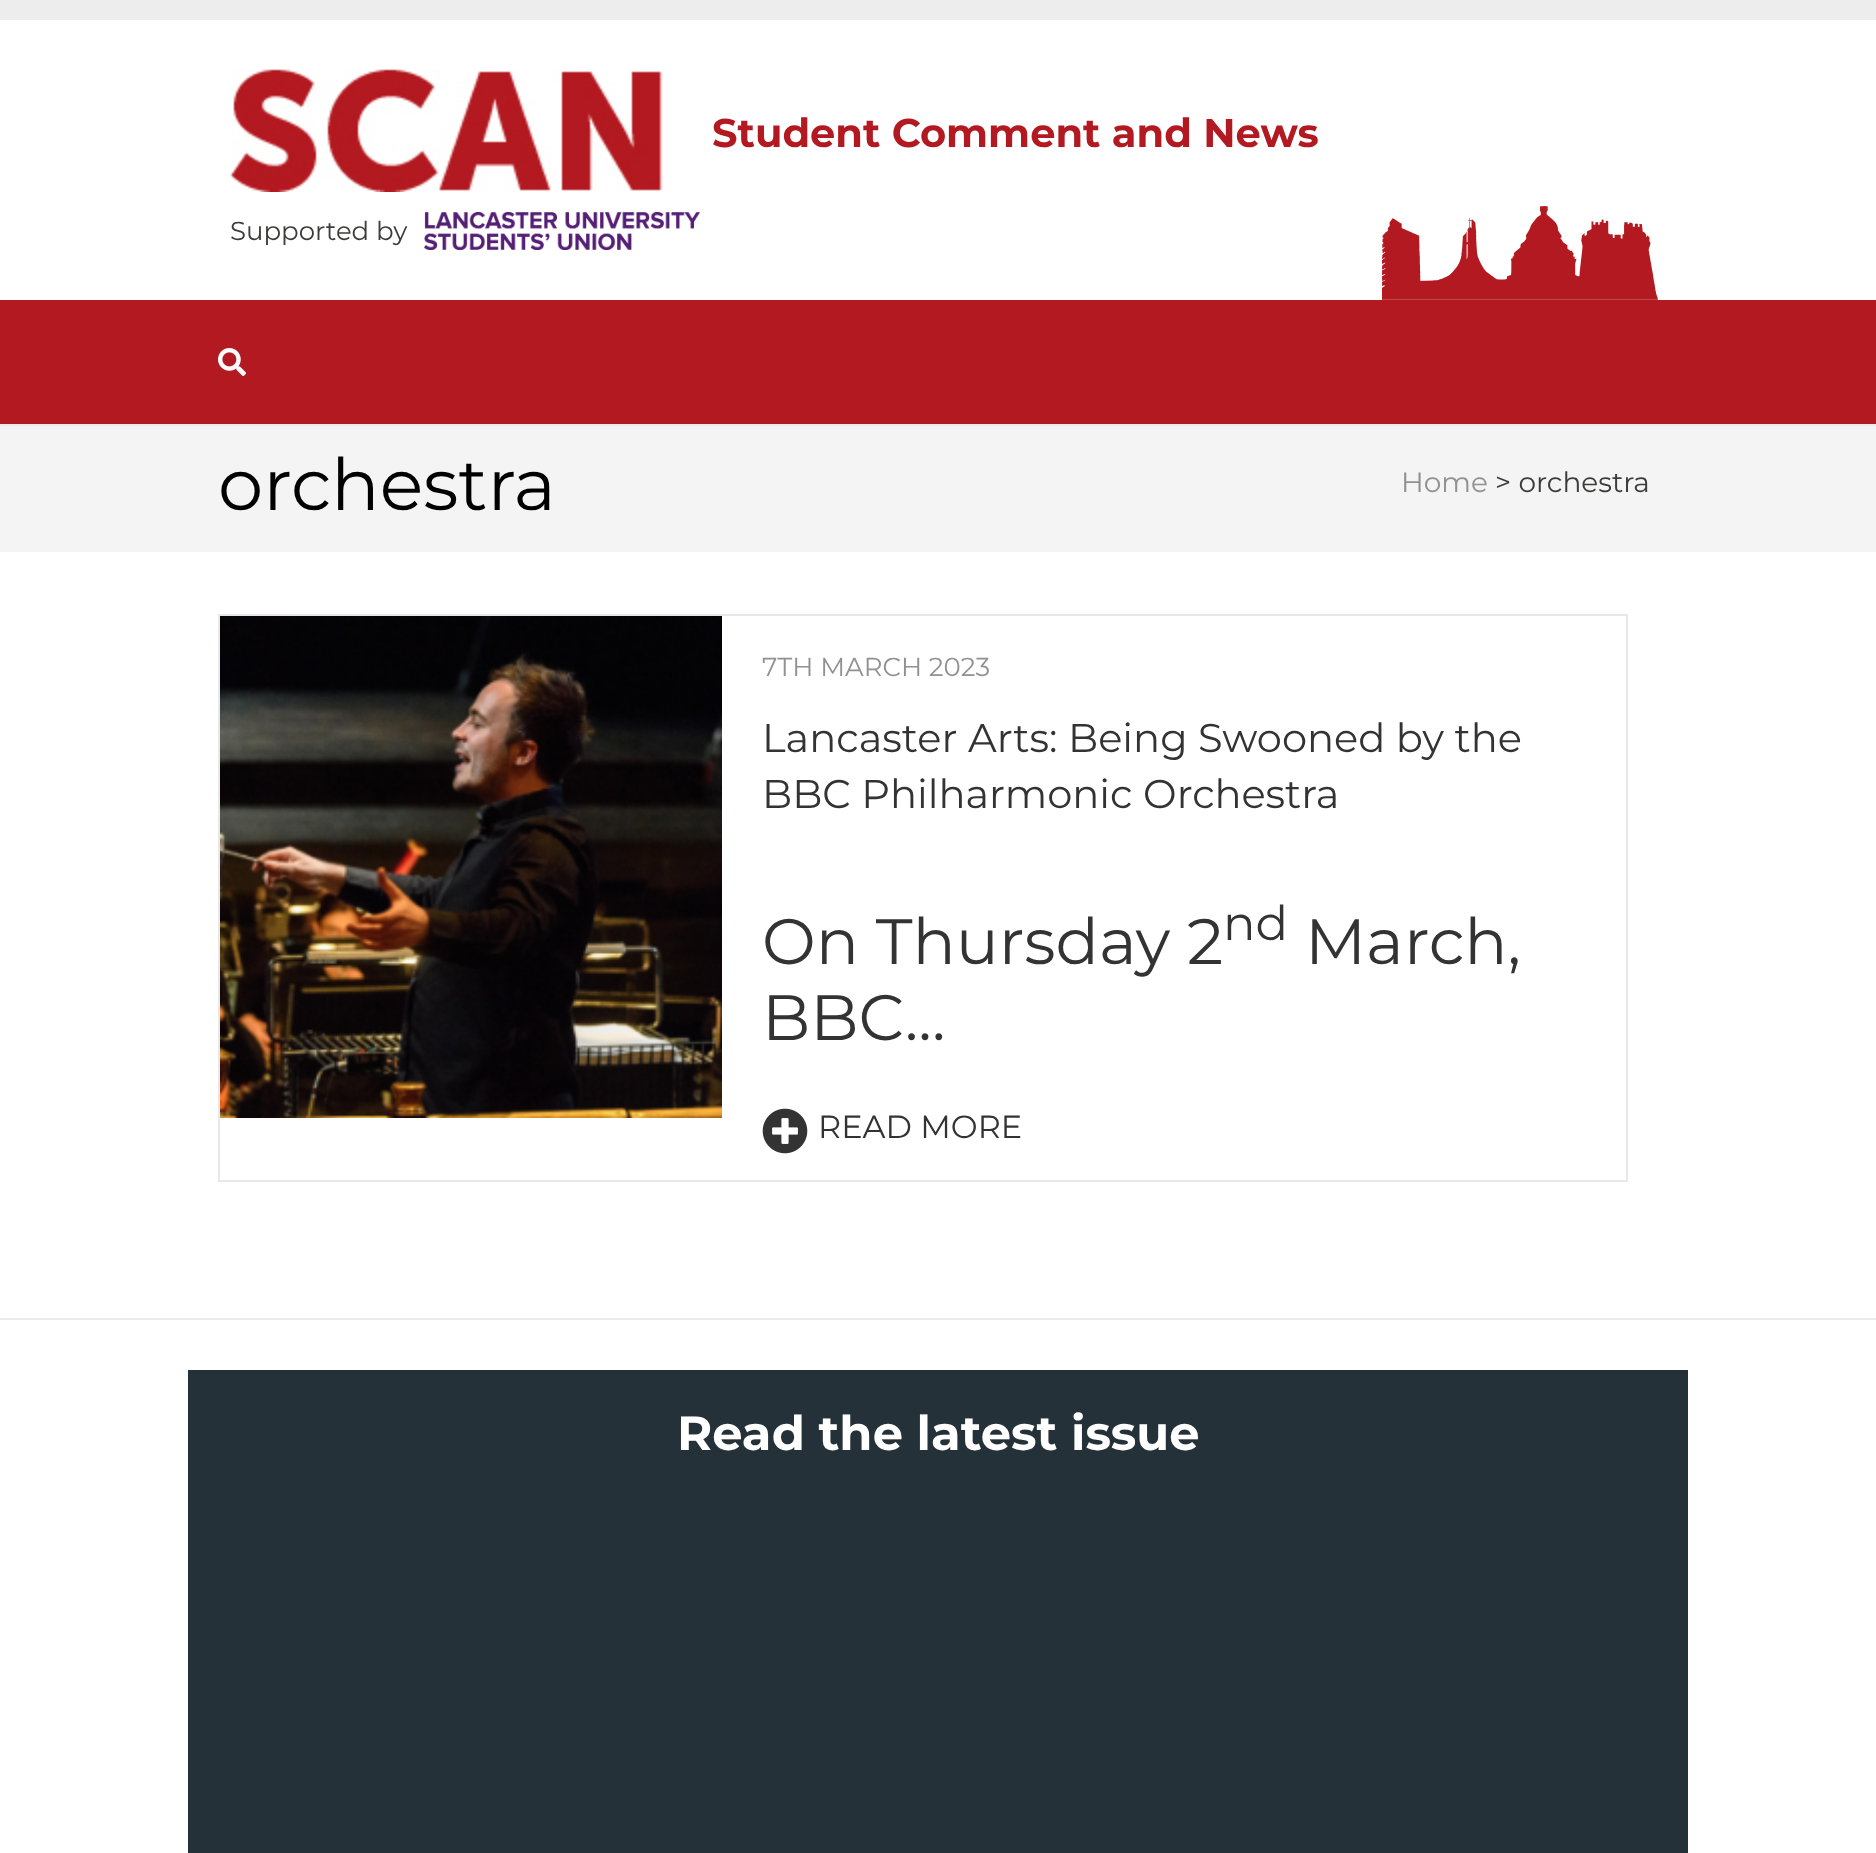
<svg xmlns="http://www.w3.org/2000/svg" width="1876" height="1853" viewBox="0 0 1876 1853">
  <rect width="100%" height="100%" fill="rgb(255,255,255)"/>
  <rect x="0" y="0" width="1876" height="20" fill="rgb(237,237,237)"/>
  <image x="229" y="69" width="434" height="123" href="pic1.png"/>
  <text x="712" y="147" font-family="Montserrat" font-size="40" font-weight="bold" fill="rgb(179,25,32)">Student Comment and News</text>
  <text x="230" y="240" font-family="Montserrat" font-size="26" fill="rgb(60,60,59)">Supported by</text>
  <image x="424" y="212" width="276" height="38" href="pic2.png"/>
  <image x="1382" y="206" width="276" height="94" href="pic3.png"/>
  <rect x="0" y="300" width="1876" height="124" fill="rgb(179,25,32)"/>
  <image x="218" y="348" width="28" height="28" href="pic4.png"/>
  <rect x="0" y="426" width="1876" height="126" fill="rgb(244,244,244)"/>
  <rect x="0" y="424" width="1876" height="2" fill="rgb(235,235,235)"/>
  <text x="218" y="510" font-family="Montserrat" font-size="72" fill="rgb(0,0,0)">orchestra</text>
  <text x="1401" y="492" font-family="Montserrat" font-size="28" fill="rgb(145,145,145)">Home</text>
  <text x="1495" y="492" font-family="Montserrat" font-size="28" fill="rgb(60,60,59)">&gt; orchestra</text>
  <rect x="0" y="1318" width="1876" height="2" fill="rgb(235,235,235)"/>
  <rect x="219" y="615" width="1408" height="566" fill="none" stroke="rgb(232,232,232)" stroke-width="2"/>
  <image x="220" y="616" width="502" height="502" href="pic5.png"/>
  <text x="762" y="676" font-family="Montserrat" font-size="26" fill="rgb(145,145,145)">7TH MARCH 2023</text>
  <g font-family="Montserrat" font-size="40" fill="rgb(51,51,51)">
    <text>
      <tspan x="762" y="752">Lancaster Arts: Being Swooned by the</tspan>
      <tspan x="762" y="808">BBC Philharmonic Orchestra</tspan>
    </text>
  </g>
  <text x="762" y="964" font-family="Montserrat" font-size="64" fill="rgb(51,51,51)">On Thursday 2</text>
  <text x="1223" y="940" font-family="Montserrat" font-size="48" fill="rgb(51,51,51)">nd</text>
  <g font-family="Montserrat" font-size="64" fill="rgb(51,51,51)">
    <text x="1305" y="964">March,</text>
    <text x="762" y="1040">BBC...</text>
  </g>
  <image x="762" y="1108" width="46" height="46" href="pic6.png"/>
  <text x="818" y="1138" font-family="Montserrat" font-size="32" fill="rgb(51,51,51)">READ MORE</text>
  <rect x="188" y="1370" width="1500" height="483" fill="rgb(37,49,57)"/>
  <text x="677" y="1450" font-family="Montserrat" font-size="48" font-weight="bold" fill="rgb(255,255,255)">Read the latest issue</text>
</svg>
